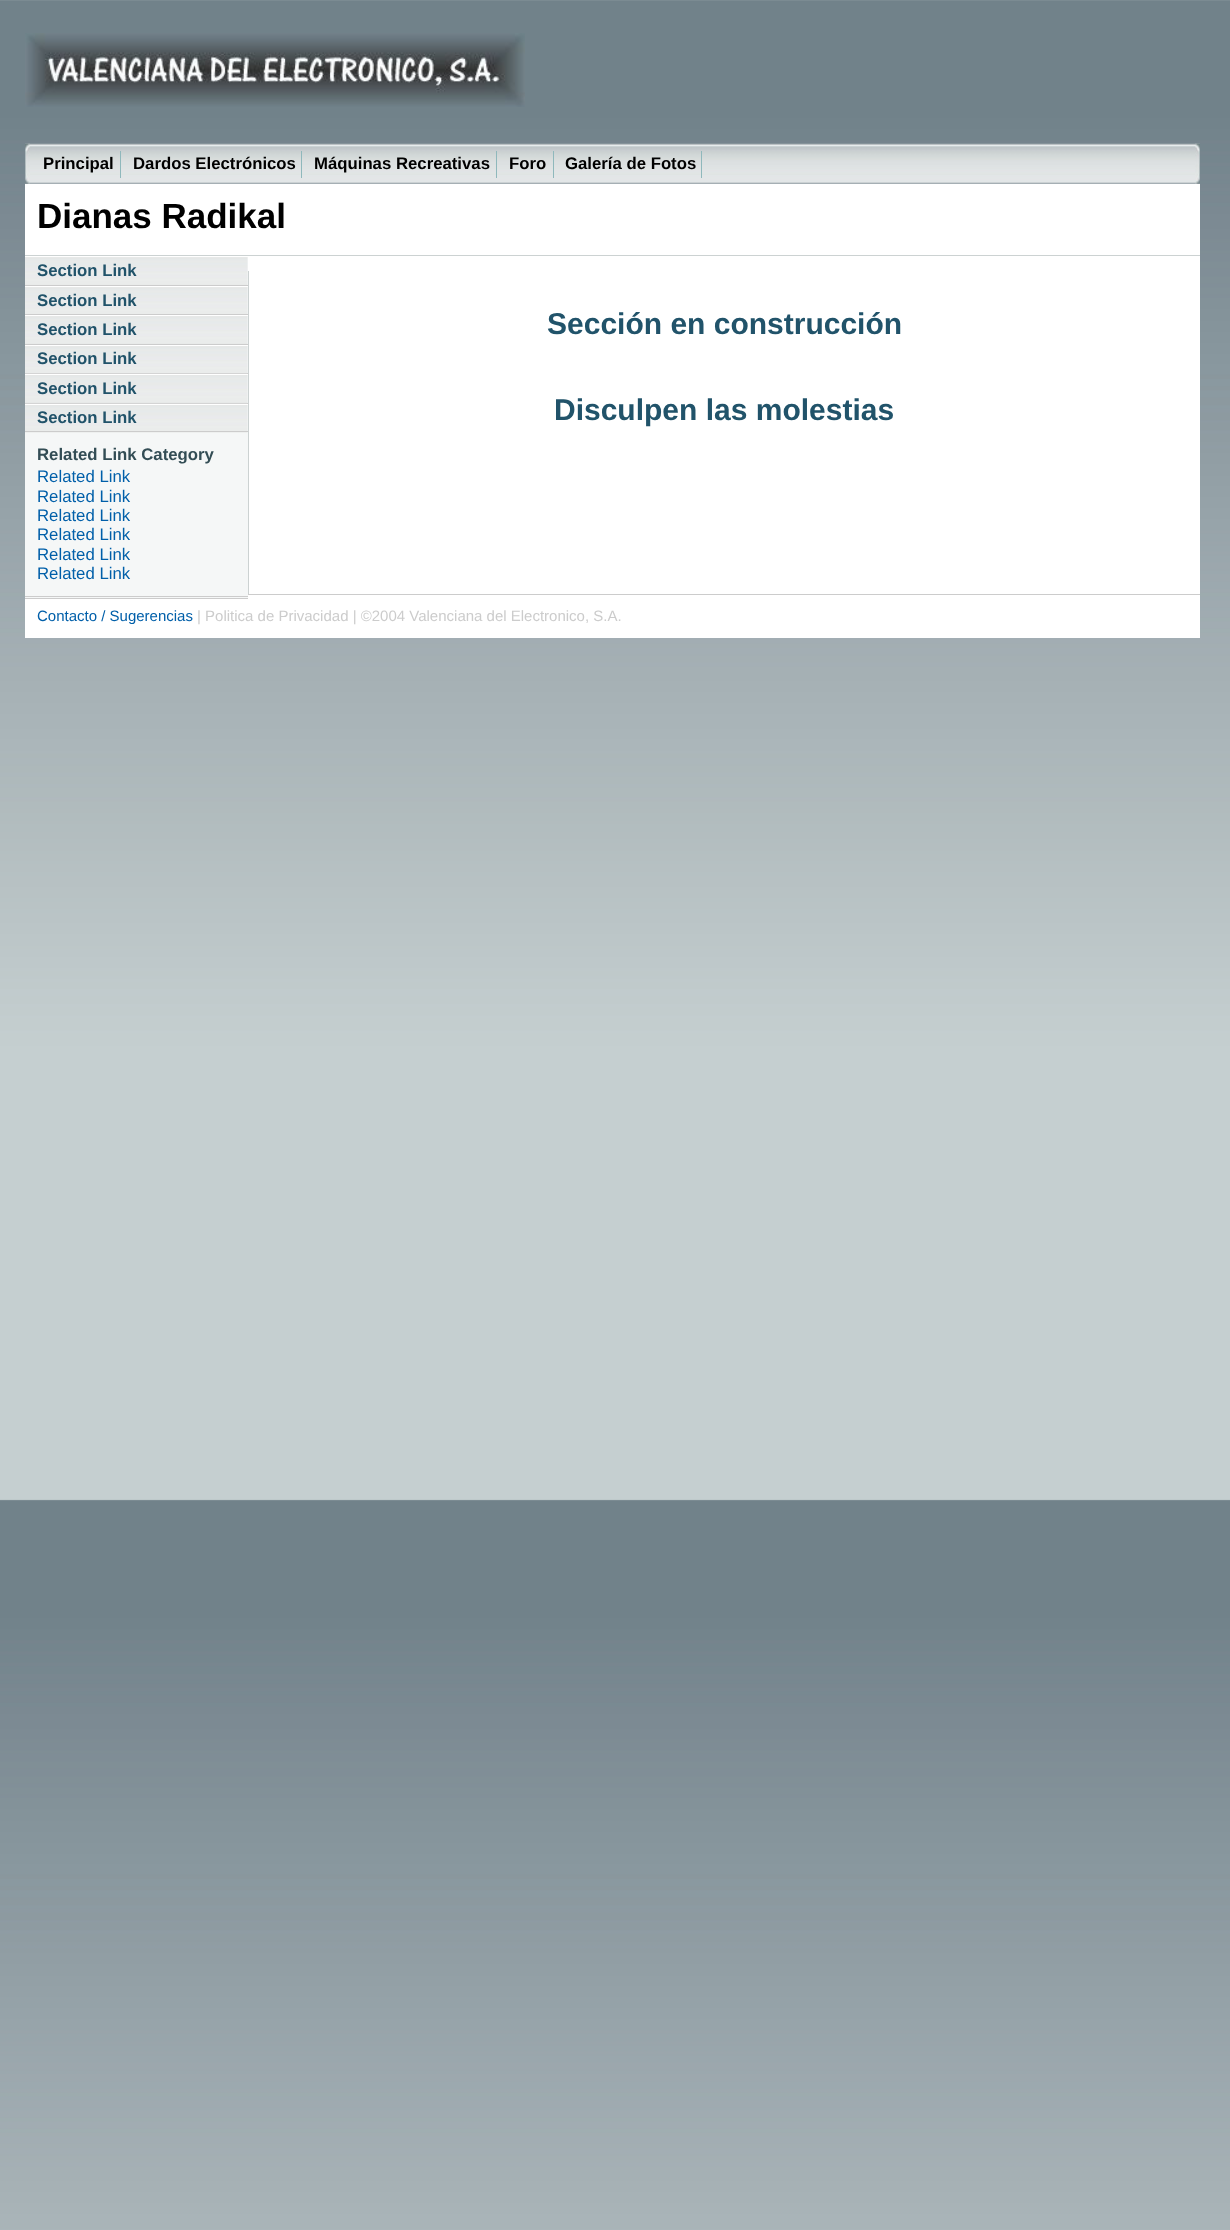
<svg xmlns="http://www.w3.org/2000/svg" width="1230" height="2230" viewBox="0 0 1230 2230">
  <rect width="100%" height="100%" fill="rgb(255,255,255)"/>
  <image x="0" y="0" width="1230" height="2230" href="pic1.png"/>
  <image x="25" y="33" width="500" height="74" href="pic2.png"/>
  <image x="25" y="143" width="1175" height="41" href="pic3.png"/>
  <image x="25" y="143" width="5" height="41" href="pic4.png"/>
  <text x="43" y="169" font-family="Liberation Sans" font-size="16.75" font-weight="bold" fill="rgb(0,0,0)">Principal</text>
  <rect x="120" y="151" width="1" height="27" fill="rgb(143,184,188)"/>
  <text x="133" y="169" font-family="Liberation Sans" font-size="16.75" font-weight="bold" fill="rgb(0,0,0)">Dardos Electrónicos</text>
  <rect x="301" y="151" width="1" height="27" fill="rgb(143,184,188)"/>
  <text x="314" y="169" font-family="Liberation Sans" font-size="16.75" font-weight="bold" fill="rgb(0,0,0)">Máquinas Recreativas</text>
  <rect x="496" y="151" width="1" height="27" fill="rgb(143,184,188)"/>
  <text x="509" y="169" font-family="Liberation Sans" font-size="16.75" font-weight="bold" fill="rgb(0,0,0)">Foro</text>
  <rect x="553" y="151" width="1" height="27" fill="rgb(143,184,188)"/>
  <text x="565" y="169" font-family="Liberation Sans" font-size="16.75" font-weight="bold" fill="rgb(0,0,0)">Galería de Fotos</text>
  <rect x="701" y="151" width="1" height="27" fill="rgb(143,184,188)"/>
  <image x="1195" y="143" width="5" height="41" href="pic5.png"/>
  <rect x="25" y="184" width="1175" height="454" fill="rgb(255,255,255)"/>
  <rect x="25" y="255" width="1175" height="1" fill="rgb(204,210,210)"/>
  <text x="37" y="228" font-family="Liberation Sans" font-size="35" font-weight="bold" fill="rgb(0,0,0)">Dianas Radikal</text>
  <rect x="25" y="257" width="223" height="341" fill="rgb(245,247,247)"/>
  <rect x="25" y="598" width="223" height="1" fill="rgb(204,204,204)"/>
  <image x="25" y="257" width="223" height="28" href="pic6.png"/>
  <rect x="25" y="285" width="223" height="1" fill="rgb(204,204,204)"/>
  <text x="37" y="276" font-family="Liberation Sans" font-size="16.75" font-weight="bold" fill="rgb(33,83,106)">Section Link</text>
  <image x="25" y="287" width="223" height="27" href="pic7.png"/>
  <rect x="25" y="286" width="223" height="1" fill="rgb(255,255,255)"/>
  <rect x="25" y="314" width="223" height="1" fill="rgb(204,204,204)"/>
  <text x="37" y="306" font-family="Liberation Sans" font-size="16.75" font-weight="bold" fill="rgb(33,83,106)">Section Link</text>
  <image x="25" y="316" width="223" height="28" href="pic8.png"/>
  <rect x="25" y="315" width="223" height="1" fill="rgb(255,255,255)"/>
  <rect x="25" y="344" width="223" height="1" fill="rgb(204,204,204)"/>
  <text x="37" y="335" font-family="Liberation Sans" font-size="16.75" font-weight="bold" fill="rgb(33,83,106)">Section Link</text>
  <image x="25" y="346" width="223" height="27" href="pic9.png"/>
  <rect x="25" y="345" width="223" height="1" fill="rgb(255,255,255)"/>
  <rect x="25" y="373" width="223" height="1" fill="rgb(204,204,204)"/>
  <text x="37" y="364" font-family="Liberation Sans" font-size="16.75" font-weight="bold" fill="rgb(33,83,106)">Section Link</text>
  <image x="25" y="373" width="223" height="30" href="pic10.png"/>
  <rect x="25" y="374" width="223" height="1" fill="rgb(255,255,255)"/>
  <rect x="25" y="403" width="223" height="1" fill="rgb(204,204,204)"/>
  <text x="37" y="394" font-family="Liberation Sans" font-size="16.75" font-weight="bold" fill="rgb(33,83,106)">Section Link</text>
  <image x="25" y="403" width="223" height="30" href="pic11.png"/>
  <rect x="25" y="404" width="223" height="1" fill="rgb(255,255,255)"/>
  <rect x="25" y="431" width="223" height="1" fill="rgb(204,204,204)"/>
  <text x="37" y="423" font-family="Liberation Sans" font-size="16.75" font-weight="bold" fill="rgb(33,83,106)">Section Link</text>
  <rect x="25" y="596" width="223" height="1" fill="rgb(204,204,204)"/>
  <text x="37" y="460" font-family="Liberation Sans" font-size="16.75" font-weight="bold" fill="rgb(51,77,85)">Related Link Category</text>
  <g font-family="Liberation Sans" font-size="16.75" fill="rgb(0,95,169)">
    <text>
      <tspan x="37" y="482">Related Link</tspan>
      <tspan x="37" y="502">Related Link</tspan>
      <tspan x="37" y="521">Related Link</tspan>
      <tspan x="37" y="540">Related Link</tspan>
      <tspan x="37" y="560">Related Link</tspan>
      <tspan x="37" y="579">Related Link</tspan>
    </text>
  </g>
  <rect x="248" y="271" width="1" height="323" fill="rgb(204,210,210)"/>
  <g font-family="Liberation Sans" font-size="30" font-weight="bold" fill="rgb(33,83,106)">
    <text x="547" y="334">Sección en construcción</text>
    <text x="554" y="420">Disculpen las molestias</text>
  </g>
  <rect x="248" y="594" width="952" height="1" fill="rgb(204,204,204)"/>
  <text x="37" y="621" font-family="Liberation Sans" font-size="15" fill="rgb(0,95,169)">Contacto / Sugerencias</text>
  <text x="197" y="621" font-family="Liberation Sans" font-size="15" fill="rgb(204,204,204)">| Politica de Privacidad | ©2004 Valenciana del Electronico, S.A.</text>
</svg>
